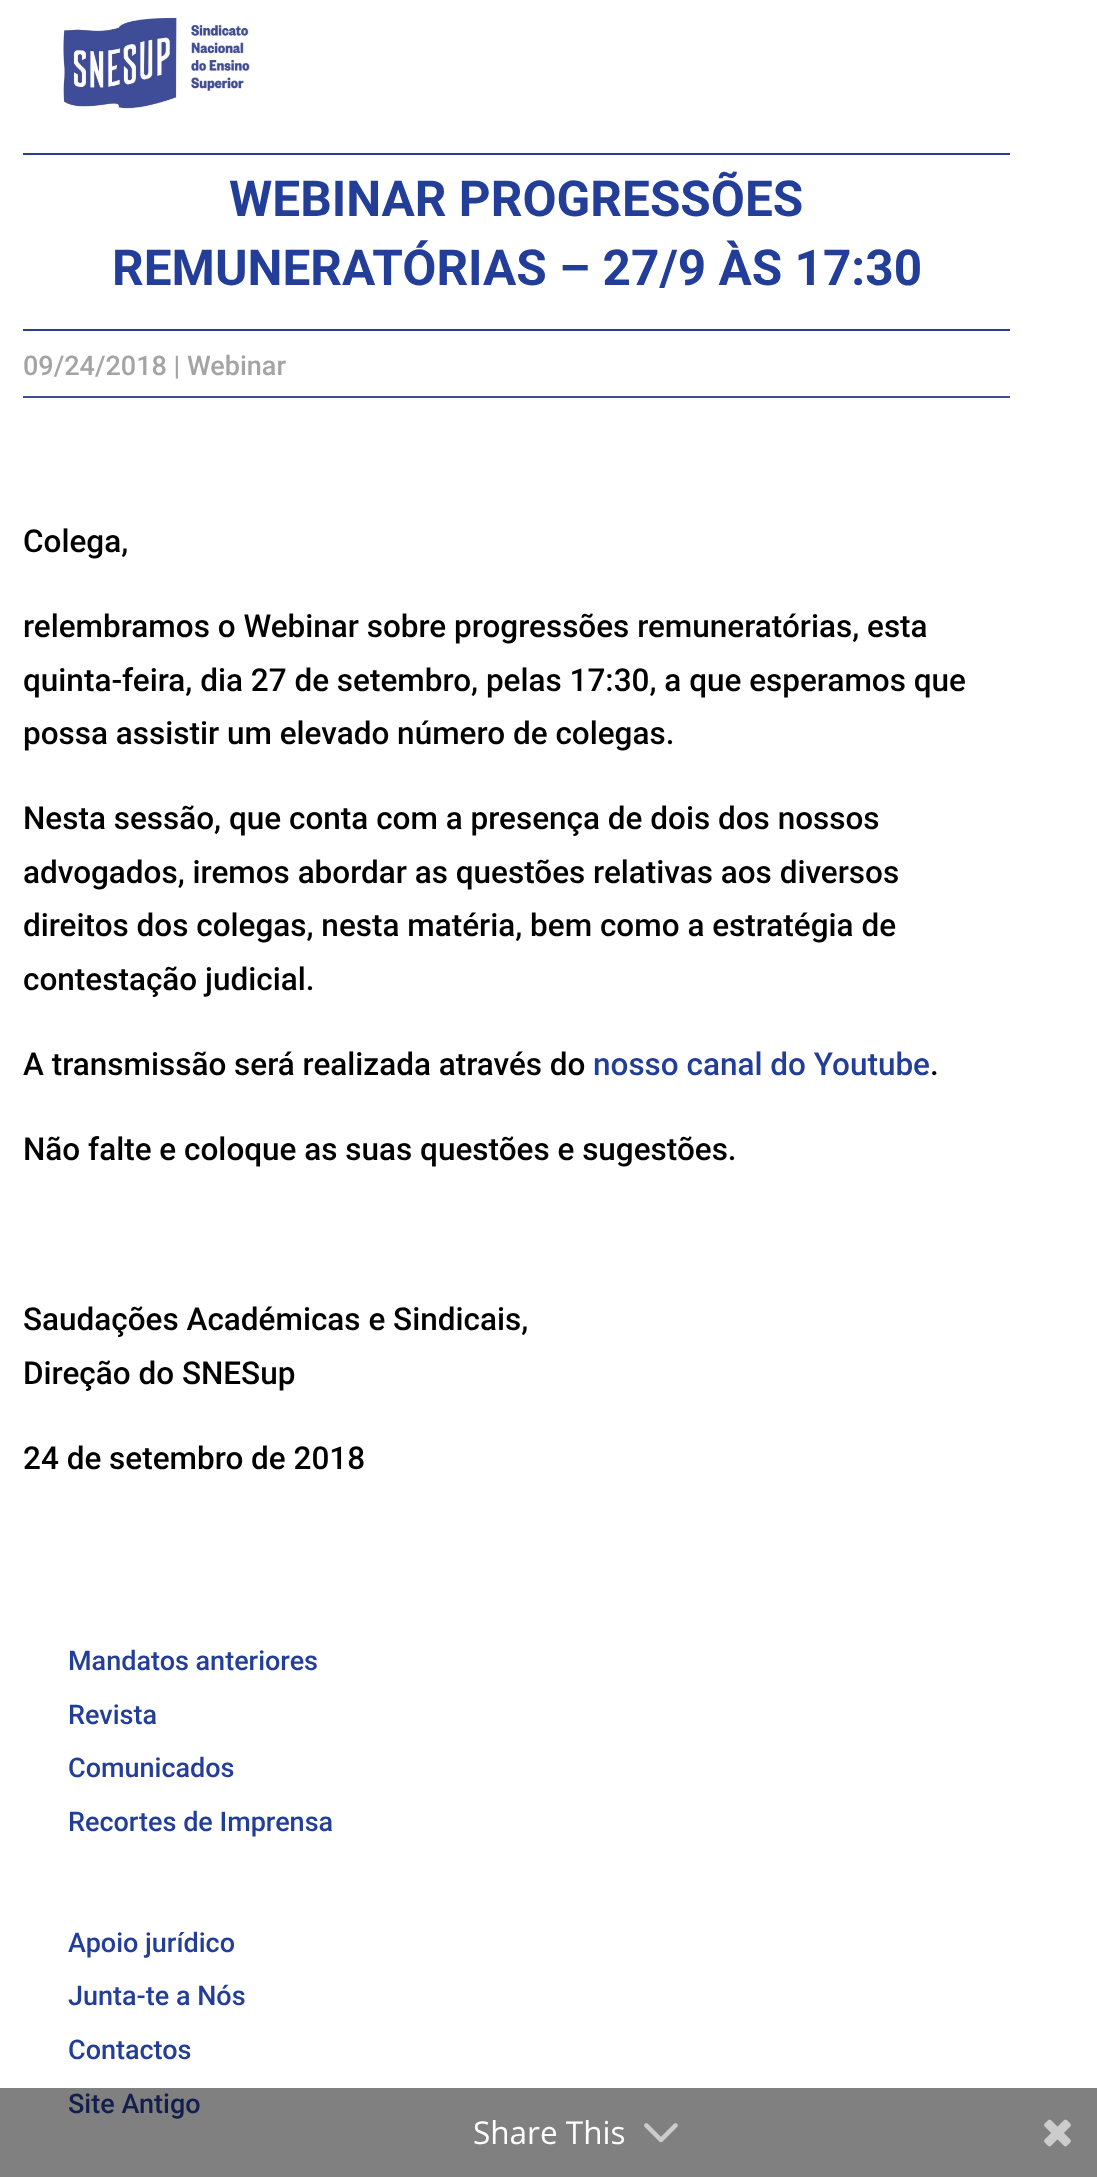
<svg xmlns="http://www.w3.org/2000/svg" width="1097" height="2177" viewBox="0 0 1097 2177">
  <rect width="100%" height="100%" fill="rgb(255,255,255)"/>
  <rect x="0" y="2088" width="1097" height="89" fill="rgb(128,128,128)"/>
  <image x="63" y="17" width="187" height="92" href="pic1.png"/>
  <rect x="23" y="153" width="987" height="2" fill="rgb(35,62,153)"/>
  <g font-family="Roboto" font-size="49.5" font-weight="bold" fill="rgb(35,62,153)">
    <text x="229" y="216">WEBINAR PROGRESSÕES</text>
    <text x="112" y="285">REMUNERATÓRIAS – 27/9 ÀS 17:30</text>
  </g>
  <rect x="23" y="329" width="987" height="2" fill="rgb(35,62,153)"/>
  <text x="23" y="375" font-family="Roboto" font-size="27" font-weight="500" fill="rgb(164,164,164)">09/24/2018 | Webinar</text>
  <rect x="23" y="396" width="987" height="2" fill="rgb(63,77,152)"/>
  <g font-family="Roboto" font-size="31.5" font-weight="500" fill="rgb(0,0,0)">
    <text x="23" y="552">Colega,</text>
    <text>
      <tspan x="23" y="637">relembramos o Webinar sobre progressões remuneratórias, esta</tspan>
      <tspan x="23" y="691">quinta-feira, dia 27 de setembro, pelas 17:30, a que esperamos que</tspan>
      <tspan x="23" y="744">possa assistir um elevado número de colegas.</tspan>
    </text>
    <text>
      <tspan x="23" y="829">Nesta sessão, que conta com a presença de dois dos nossos</tspan>
      <tspan x="23" y="883">advogados, iremos abordar as questões relativas aos diversos</tspan>
      <tspan x="23" y="936">direitos dos colegas, nesta matéria, bem como a estratégia de</tspan>
      <tspan x="23" y="990">contestação judicial.</tspan>
    </text>
    <text x="23" y="1075">A transmissão será realizada através do</text>
  </g>
  <text x="593" y="1075" font-family="Roboto" font-size="31.5" font-weight="500" fill="rgb(35,62,153)">nosso canal do Youtube</text>
  <g font-family="Roboto" font-size="31.5" font-weight="500" fill="rgb(0,0,0)">
    <text x="930" y="1075">.</text>
    <text x="23" y="1160">Não falte e coloque as suas questões e sugestões.</text>
    <text>
      <tspan x="23" y="1330">Saudações Académicas e Sindicais,</tspan>
      <tspan x="23" y="1384">Direção do SNESup</tspan>
    </text>
    <text x="23" y="1469">24 de setembro de 2018</text>
  </g>
  <g font-family="Roboto" font-size="27" font-weight="500" fill="rgb(35,62,153)">
    <text x="68" y="1670">Mandatos anteriores</text>
    <text>
      <tspan x="68" y="1724">Revista</tspan>
      <tspan x="68" y="1777">Comunicados</tspan>
    </text>
    <text x="68" y="1831">Recortes de Imprensa</text>
    <text>
      <tspan x="68" y="1952">Apoio jurídico</tspan>
      <tspan x="68" y="2005">Junta-te a Nós</tspan>
    </text>
    <text x="68" y="2059">Contactos</text>
  </g>
  <text x="68" y="2113" font-family="Roboto" font-size="27" font-weight="500" fill="rgb(18,31,77)">Site Antigo</text>
  <text x="473" y="2144" font-family="Open Sans" font-size="31.5" fill="rgb(255,255,255)">Share This</text>
  <image x="644" y="2123" width="34" height="20" href="pic2.png"/>
  <image x="1044" y="2119" width="27" height="28" href="pic3.png"/>
</svg>
